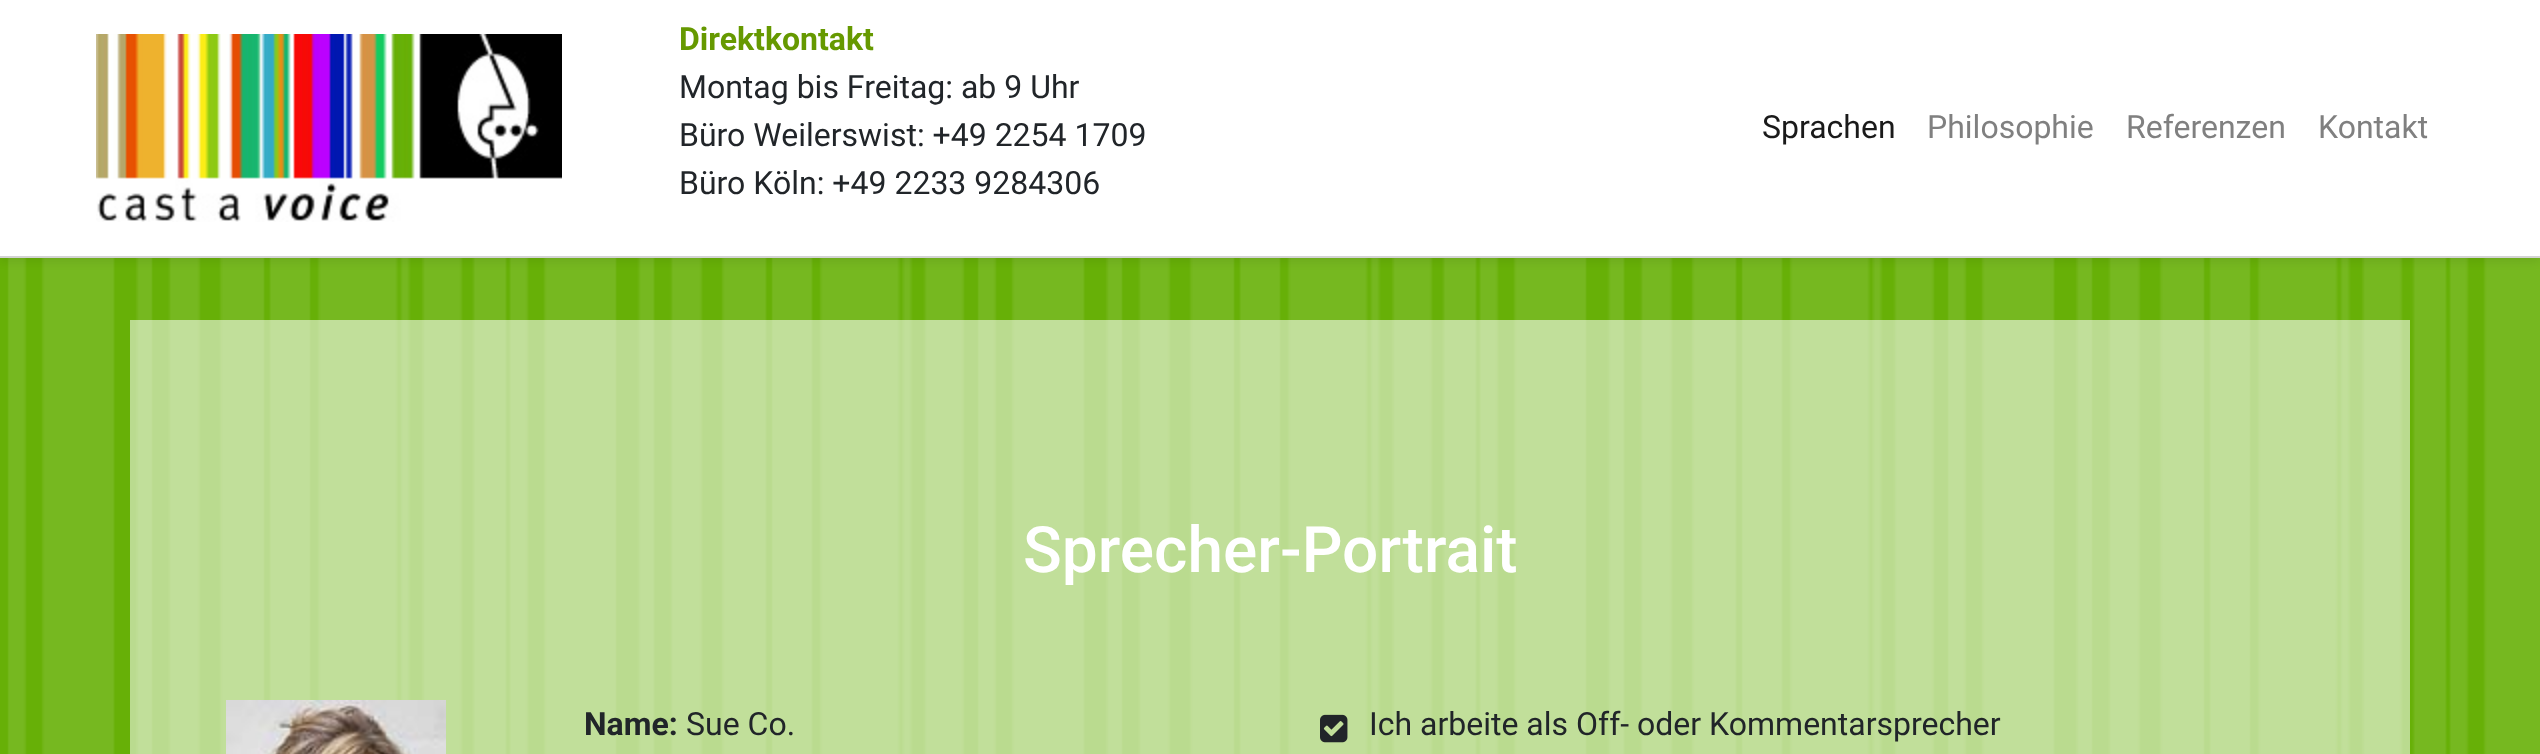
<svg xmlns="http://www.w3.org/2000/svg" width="2540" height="754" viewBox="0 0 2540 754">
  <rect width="100%" height="100%" fill="rgb(255,255,255)"/>
  <image x="0" y="258" width="2540" height="496" href="pic1.png"/>
  <rect x="0" y="4" width="2540" height="258" fill="rgba(0,0,0,0.07)" filter="blur(4px)"/>
  <rect x="0" y="0" width="2540" height="256" fill="rgb(255,255,255)"/>
  <rect x="0" y="256" width="2540" height="2" fill="rgb(211,211,211)"/>
  <image x="96" y="34" width="466" height="188" href="pic2.png"/>
  <text x="679" y="50" font-family="Roboto" font-size="32" font-weight="bold" fill="rgb(102,153,0)">Direktkontakt</text>
  <g font-family="Roboto" font-size="32" fill="rgb(33,37,41)">
    <text>
      <tspan x="679" y="98">Montag bis Freitag: ab 9 Uhr</tspan>
      <tspan x="679" y="146">Büro Weilerswist: +49 2254 1709</tspan>
      <tspan x="679" y="194">Büro Köln: +49 2233 9284306</tspan>
    </text>
  </g>
  <text x="1762" y="138" font-family="Roboto" font-size="32" fill="rgb(26,26,26)">Sprachen</text>
  <g font-family="Roboto" font-size="32" fill="rgb(128,128,128)">
    <text x="1927" y="138">Philosophie</text>
    <text x="2126" y="138">Referenzen</text>
    <text x="2318" y="138">Kontakt</text>
  </g>
  <rect x="130" y="320" width="2280" height="434" fill="rgba(255,255,255,0.55)"/>
  <text x="1023" y="572" font-family="Roboto" font-size="64" font-weight="500" fill="rgb(255,255,255)">Sprecher-Portrait</text>
  <image x="226" y="700" width="220" height="54" href="pic3.png"/>
  <text x="584" y="735" font-family="Roboto" font-size="32" font-weight="bold" fill="rgb(33,37,41)">Name:</text>
  <text x="686" y="735" font-family="Roboto" font-size="32" fill="rgb(33,37,41)">Sue Co.</text>
  <image x="1320" y="714" width="28" height="29" href="pic4.png"/>
  <text x="1369" y="735" font-family="Roboto" font-size="32" fill="rgb(33,37,41)">Ich arbeite als Off- oder Kommentarsprecher</text>
</svg>
